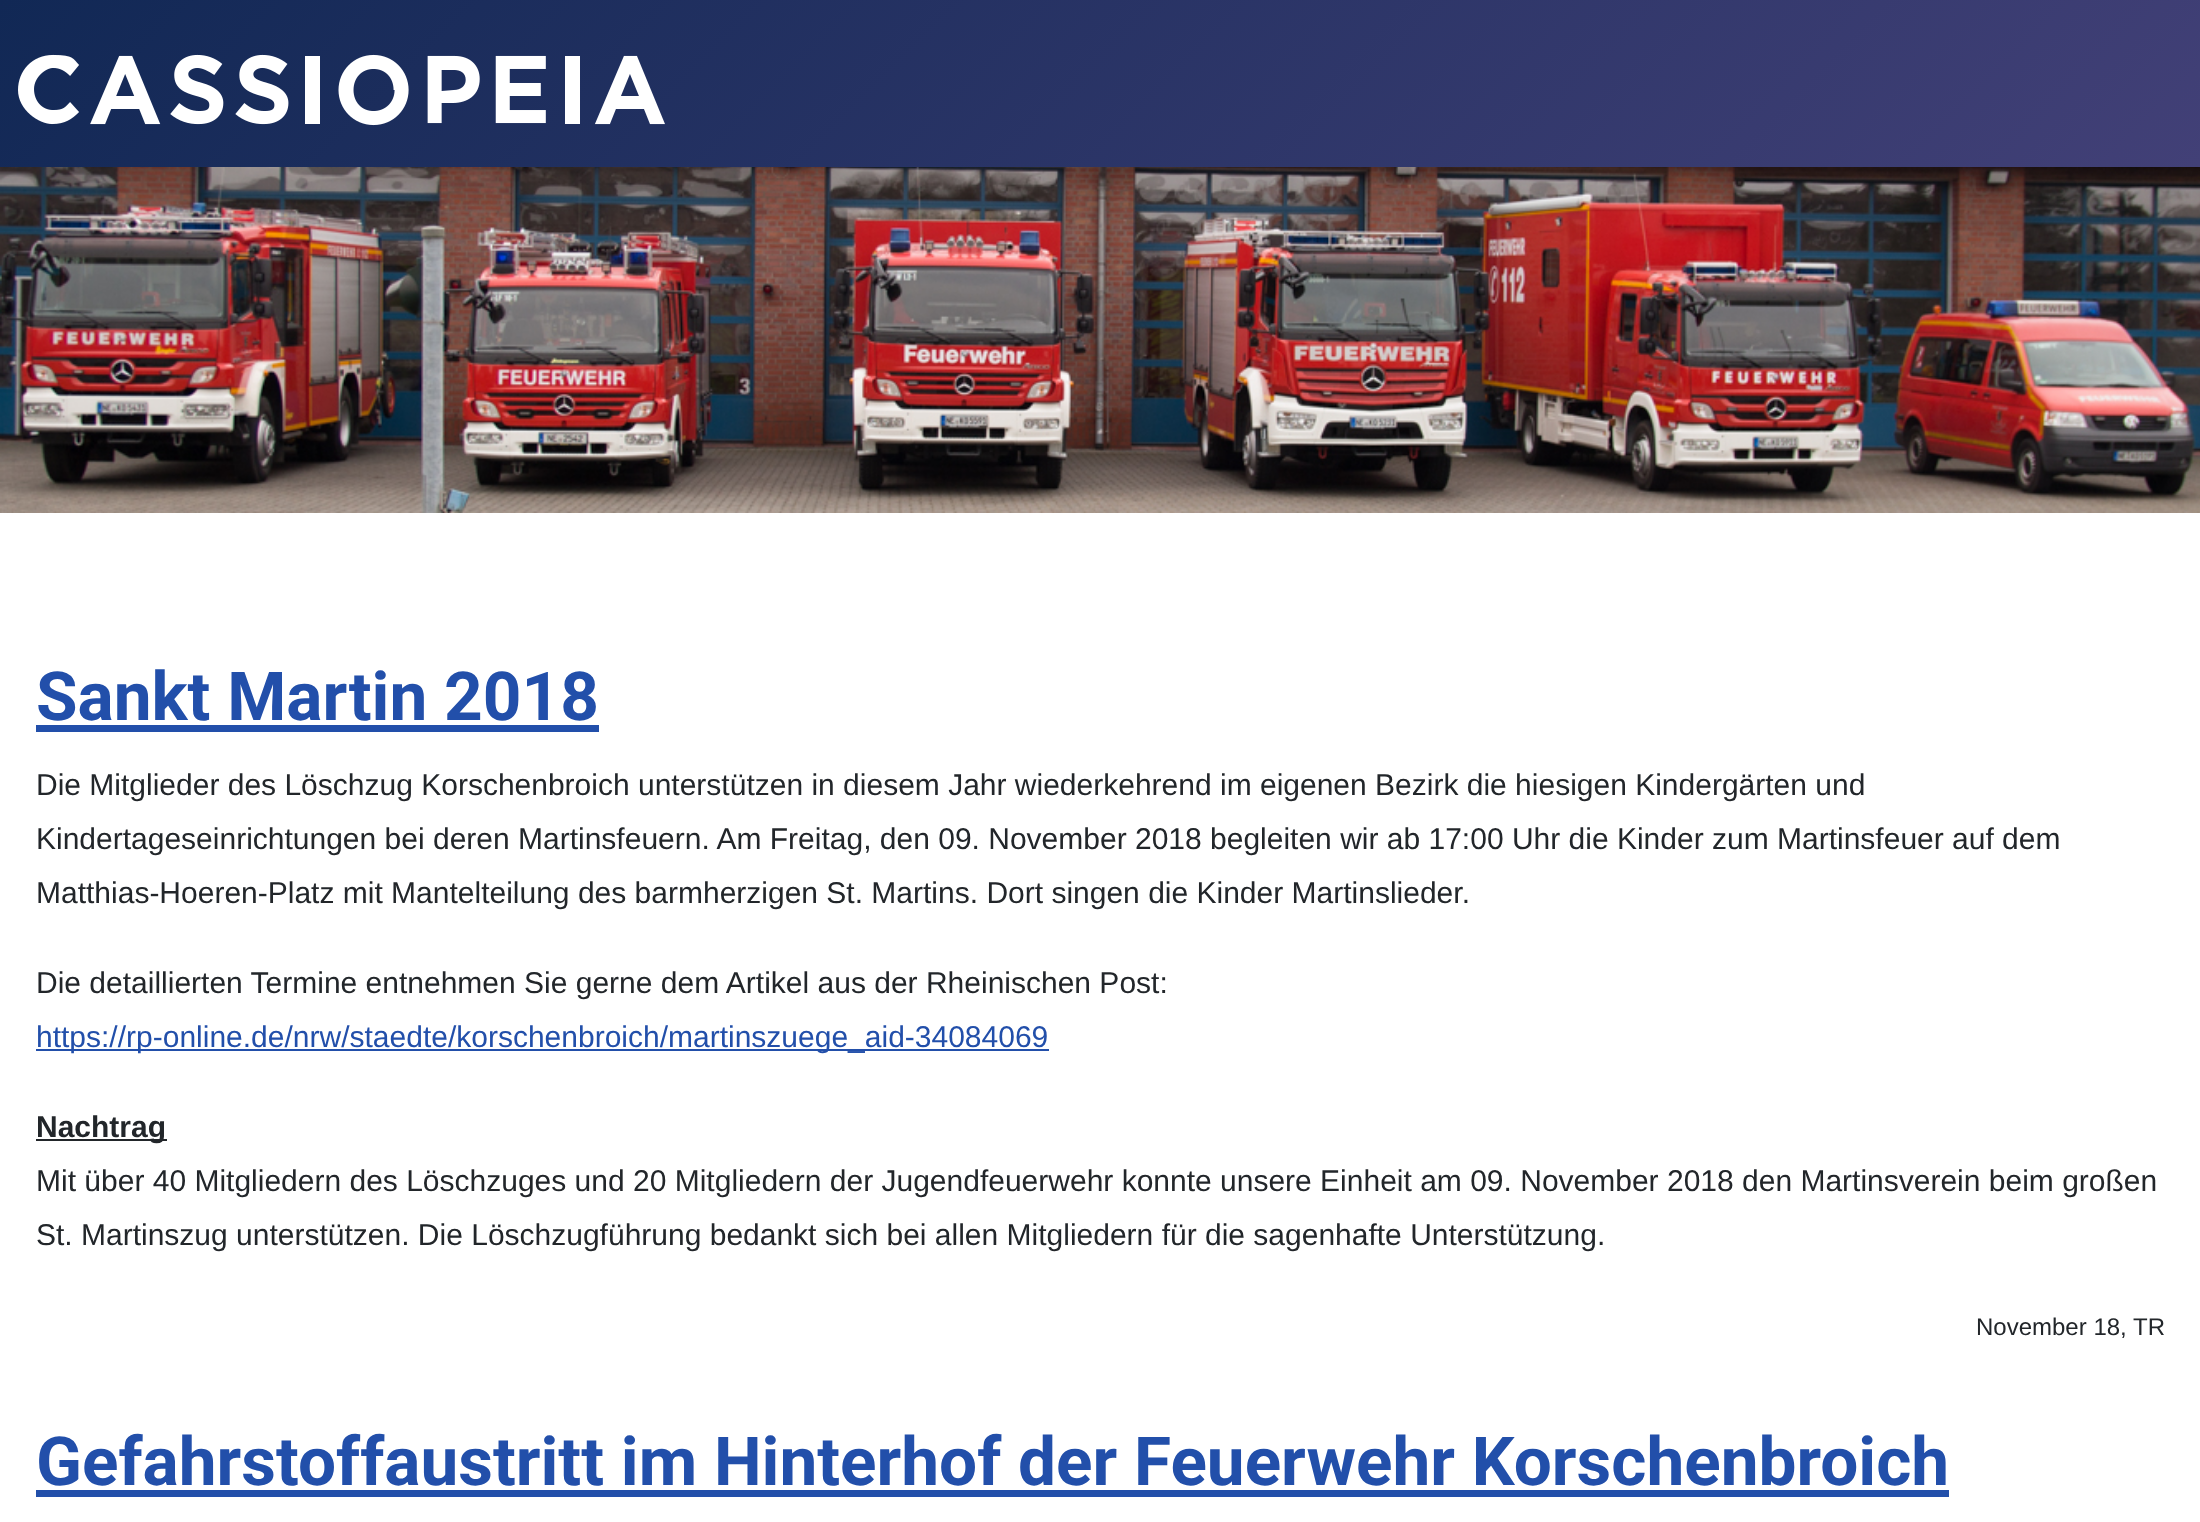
<svg xmlns="http://www.w3.org/2000/svg" width="2200" height="1522" viewBox="0 0 2200 1522">
  <defs>
    <linearGradient id="g1" gradientUnits="userSpaceOnUse" x1="509" y1="-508" x2="1692" y2="675"><stop offset="0" stop-color="rgb(17,40,85)"/><stop offset="1" stop-color="rgb(66,64,119)"/></linearGradient>
  </defs>
  <rect width="100%" height="100%" fill="rgb(255,255,255)"/>
  <rect x="0" y="0" width="2200" height="167" fill="url(#g1)"/>
  <image x="18" y="54" width="647" height="72" href="pic1.png"/>
  <image x="0" y="167" width="2200" height="346" href="pic2.png"/>
  <text x="36" y="720" font-family="Roboto" font-size="67.5" font-weight="bold" fill="rgb(34,79,170)">Sankt Martin 2018</text>
  <rect x="36" y="725" width="563" height="7" fill="rgb(34,79,170)"/>
  <g font-family="Liberation Sans" font-size="30" fill="rgb(34,38,42)">
    <text>
      <tspan x="36" y="795">Die Mitglieder des Löschzug Korschenbroich unterstützen in diesem Jahr wiederkehrend im eigenen Bezirk die hiesigen Kindergärten und</tspan>
      <tspan x="36" y="849">Kindertageseinrichtungen bei deren Martinsfeuern. Am Freitag, den 09. November 2018 begleiten wir ab 17:00 Uhr die Kinder zum Martinsfeuer auf dem</tspan>
      <tspan x="36" y="903">Matthias-Hoeren-Platz mit Mantelteilung des barmherzigen St. Martins. Dort singen die Kinder Martinslieder.</tspan>
    </text>
    <text x="36" y="993">Die detaillierten Termine entnehmen Sie gerne dem Artikel aus der Rheinischen Post:</text>
  </g>
  <rect x="36" y="1049" width="1013" height="2" fill="rgb(34,79,170)"/>
  <text x="36" y="1047" font-family="Liberation Sans" font-size="30" fill="rgb(34,79,170)">https://rp-online.de/nrw/staedte/korschenbroich/martinszuege_aid-34084069</text>
  <rect x="36" y="1139" width="131" height="2" fill="rgb(34,38,42)"/>
  <text x="36" y="1137" font-family="Liberation Sans" font-size="30" font-weight="bold" fill="rgb(34,38,42)">Nachtrag</text>
  <g font-family="Liberation Sans" font-size="30" fill="rgb(34,38,42)">
    <text>
      <tspan x="36" y="1191">Mit über 40 Mitgliedern des Löschzuges und 20 Mitgliedern der Jugendfeuerwehr konnte unsere Einheit am 09. November 2018 den Martinsverein beim großen</tspan>
      <tspan x="36" y="1245">St. Martinszug unterstützen. Die Löschzugführung bedankt sich bei allen Mitgliedern für die sagenhafte Unterstützung.</tspan>
    </text>
  </g>
  <text x="1976" y="1335" font-family="Liberation Sans" font-size="24" fill="rgb(34,38,42)">November 18, TR</text>
  <text x="36" y="1485" font-family="Roboto" font-size="67.5" font-weight="bold" fill="rgb(34,79,170)">Gefahrstoffaustritt im Hinterhof der Feuerwehr Korschenbroich</text>
  <rect x="36" y="1490" width="1913" height="7" fill="rgb(34,79,170)"/>
</svg>
